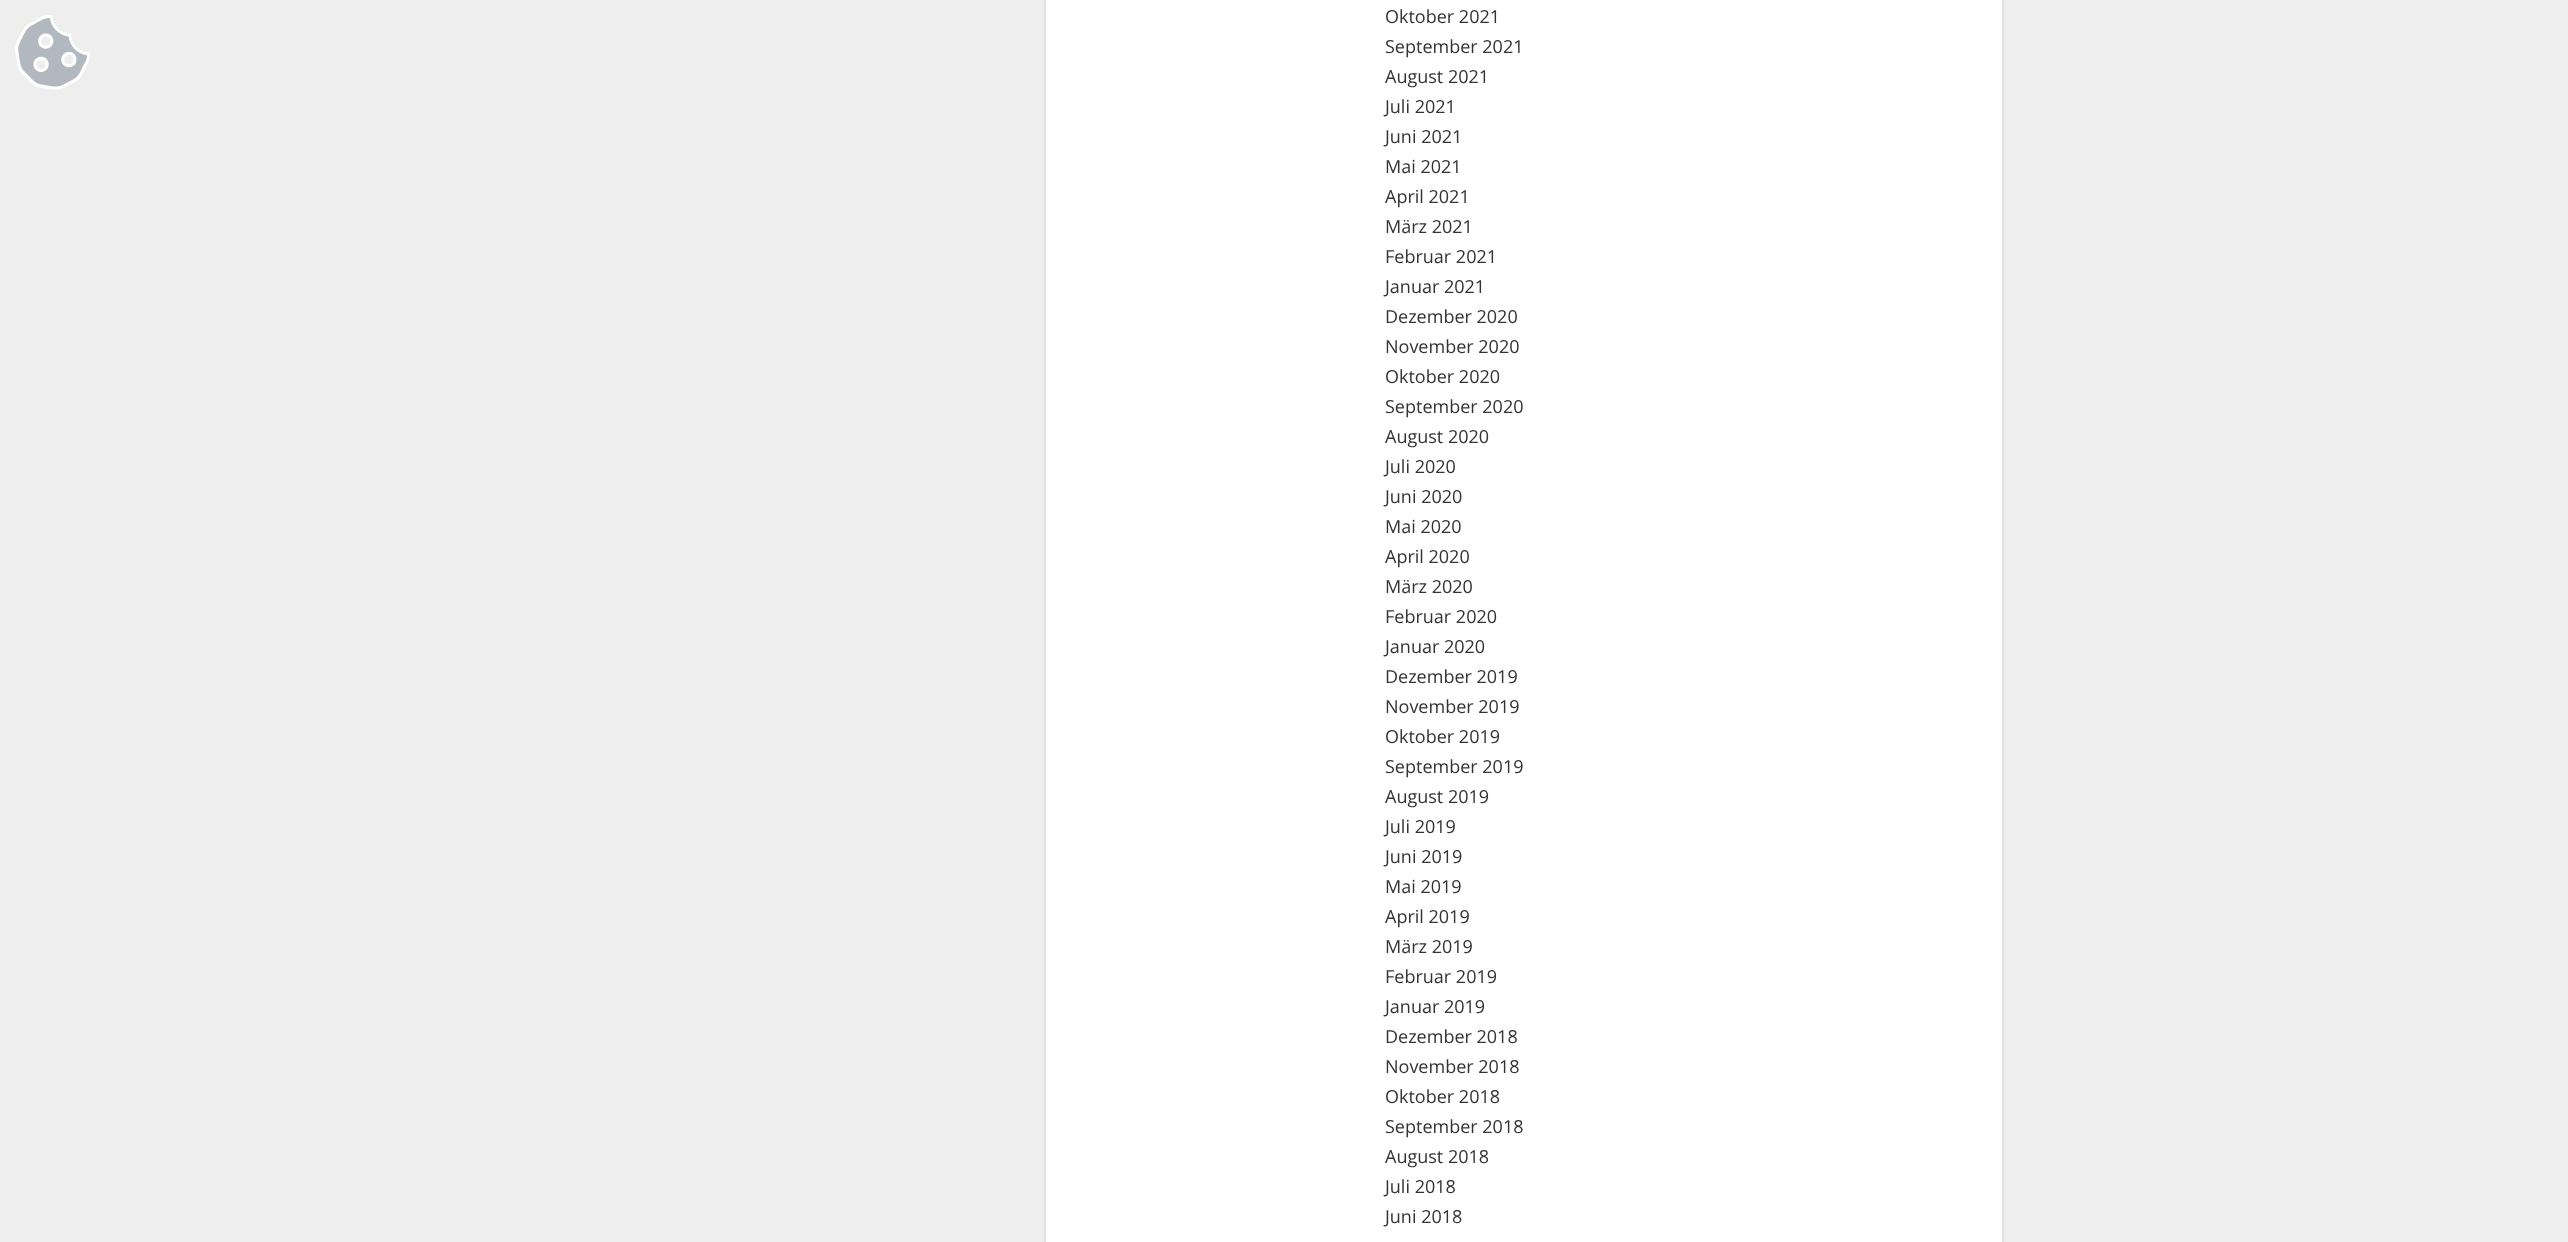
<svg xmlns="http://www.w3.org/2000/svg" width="2568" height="1242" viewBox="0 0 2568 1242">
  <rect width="100%" height="100%" fill="rgb(238,238,238)"/>
  <image x="15" y="15" width="75" height="75" href="pic1.png"/>
  <rect x="1045" y="-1" width="958" height="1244" fill="rgb(255,255,255)" stroke="rgb(226,226,226)" stroke-width="2"/>
  <g font-family="Open Sans" font-size="18" fill="rgb(51,51,51)">
    <text>
      <tspan x="1385" y="23">Oktober 2021</tspan>
      <tspan x="1385" y="53">September 2021</tspan>
      <tspan x="1385" y="83">August 2021</tspan>
      <tspan x="1385" y="113">Juli 2021</tspan>
      <tspan x="1385" y="143">Juni 2021</tspan>
      <tspan x="1385" y="173">Mai 2021</tspan>
      <tspan x="1385" y="203">April 2021</tspan>
      <tspan x="1385" y="233">März 2021</tspan>
      <tspan x="1385" y="263">Februar 2021</tspan>
      <tspan x="1385" y="293">Januar 2021</tspan>
      <tspan x="1385" y="323">Dezember 2020</tspan>
      <tspan x="1385" y="353">November 2020</tspan>
      <tspan x="1385" y="383">Oktober 2020</tspan>
      <tspan x="1385" y="413">September 2020</tspan>
      <tspan x="1385" y="443">August 2020</tspan>
      <tspan x="1385" y="473">Juli 2020</tspan>
      <tspan x="1385" y="503">Juni 2020</tspan>
      <tspan x="1385" y="533">Mai 2020</tspan>
      <tspan x="1385" y="563">April 2020</tspan>
      <tspan x="1385" y="593">März 2020</tspan>
      <tspan x="1385" y="623">Februar 2020</tspan>
      <tspan x="1385" y="653">Januar 2020</tspan>
      <tspan x="1385" y="683">Dezember 2019</tspan>
      <tspan x="1385" y="713">November 2019</tspan>
      <tspan x="1385" y="743">Oktober 2019</tspan>
      <tspan x="1385" y="773">September 2019</tspan>
      <tspan x="1385" y="803">August 2019</tspan>
      <tspan x="1385" y="833">Juli 2019</tspan>
      <tspan x="1385" y="863">Juni 2019</tspan>
      <tspan x="1385" y="893">Mai 2019</tspan>
      <tspan x="1385" y="923">April 2019</tspan>
      <tspan x="1385" y="953">März 2019</tspan>
      <tspan x="1385" y="983">Februar 2019</tspan>
      <tspan x="1385" y="1013">Januar 2019</tspan>
      <tspan x="1385" y="1043">Dezember 2018</tspan>
      <tspan x="1385" y="1073">November 2018</tspan>
      <tspan x="1385" y="1103">Oktober 2018</tspan>
      <tspan x="1385" y="1133">September 2018</tspan>
      <tspan x="1385" y="1163">August 2018</tspan>
      <tspan x="1385" y="1193">Juli 2018</tspan>
      <tspan x="1385" y="1223">Juni 2018</tspan>
    </text>
  </g>
</svg>
